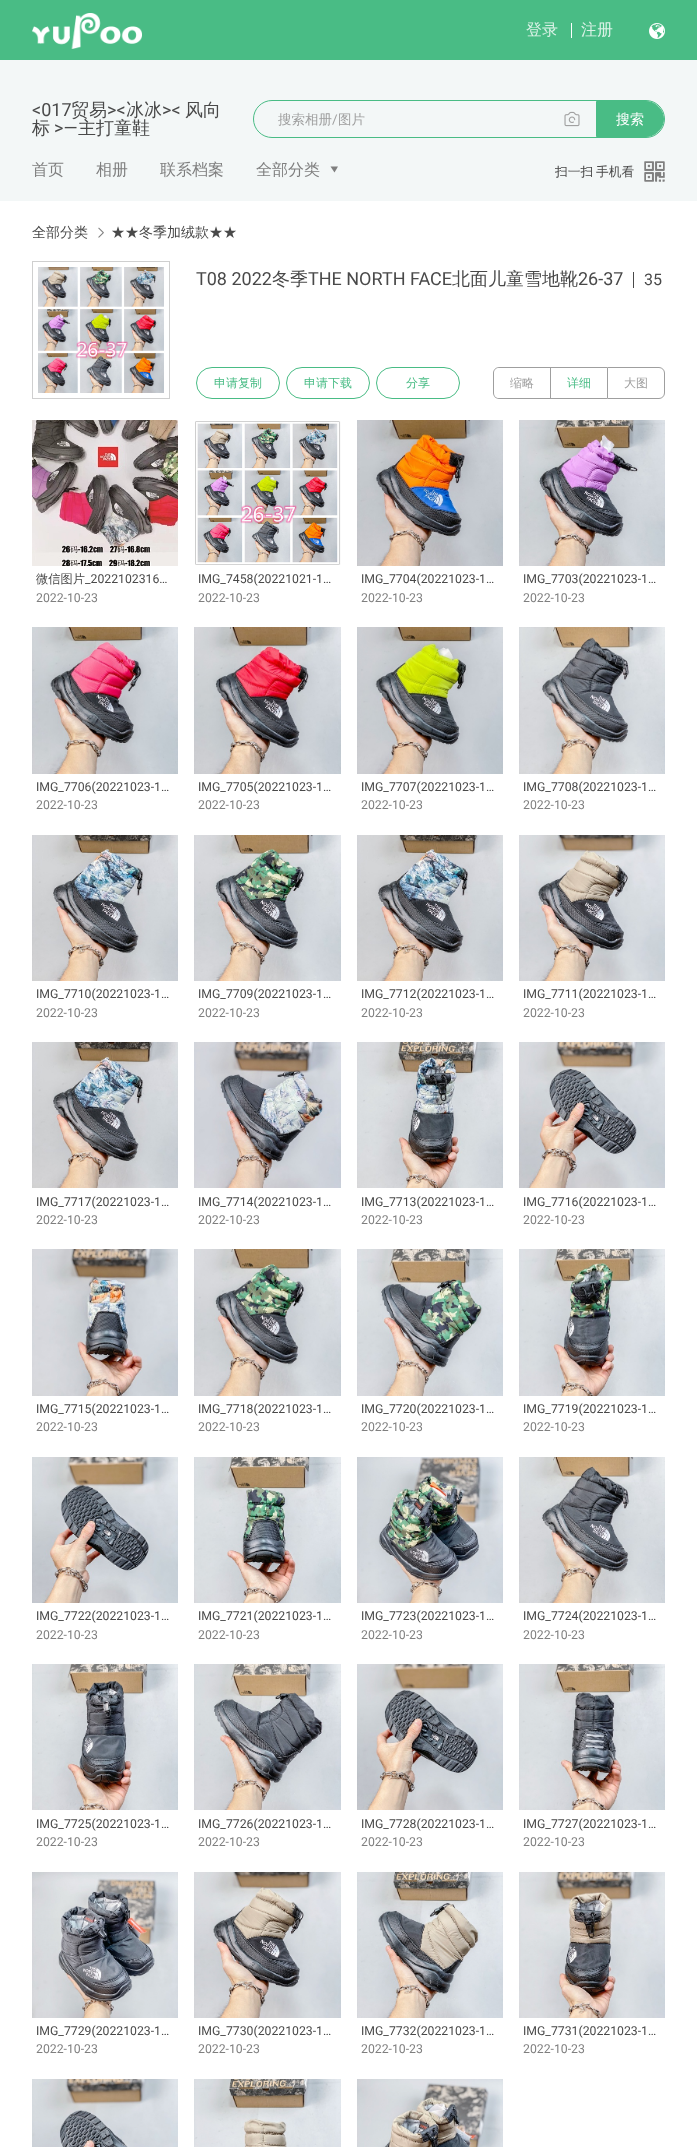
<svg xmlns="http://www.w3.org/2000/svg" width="697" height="2147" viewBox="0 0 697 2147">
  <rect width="100%" height="100%" fill="rgb(255,255,255)"/>
  <rect x="0" y="0" width="697" height="60" fill="rgb(73,188,133)"/>
  <image x="32" y="13" width="110" height="36" href="pic1.png"/>
  <text x="526" y="35" font-family="WenQuanYi Zen Hei" font-size="16" font-weight="500" fill="rgb(219,242,231)">登录</text>
  <rect x="571" y="23" width="1" height="15" fill="rgb(255,255,255)"/>
  <text x="581" y="35" font-family="WenQuanYi Zen Hei" font-size="16" font-weight="500" fill="rgb(219,242,231)">注册</text>
  <image x="649" y="23" width="16" height="16" href="pic2.png"/>
  <rect x="0" y="60" width="697" height="141" fill="rgb(243,247,247)"/>
  <text x="32" y="116" font-family="Roboto" font-size="18" fill="rgb(73,73,73)">&lt;017</text>
  <text x="71" y="116" font-family="WenQuanYi Zen Hei" font-size="18" font-weight="500" fill="rgb(73,73,73)">贸易</text>
  <text x="107" y="116" font-family="Roboto" font-size="18" fill="rgb(73,73,73)">&gt;&lt;</text>
  <text x="126" y="116" font-family="WenQuanYi Zen Hei" font-size="18" font-weight="500" fill="rgb(73,73,73)">冰冰</text>
  <text x="162" y="116" font-family="Roboto" font-size="18" fill="rgb(73,73,73)">&gt;&lt;</text>
  <g font-family="WenQuanYi Zen Hei" font-size="18" font-weight="500" fill="rgb(73,73,73)">
    <text x="185" y="116">风向</text>
    <text x="32" y="134">标</text>
  </g>
  <text x="54" y="134" font-family="Roboto" font-size="18" fill="rgb(73,73,73)">&gt;—</text>
  <text x="78" y="134" font-family="WenQuanYi Zen Hei" font-size="18" font-weight="500" fill="rgb(73,73,73)">主打童鞋</text>
  <rect x="253.5" y="100.5" width="411" height="37" rx="18.5" fill="none" stroke="rgb(73,188,133)"/>
  <text x="278" y="124" font-family="WenQuanYi Zen Hei" font-size="13.5" font-weight="500" fill="rgb(159,159,159)">搜索相册</text>
  <text x="332" y="124" font-family="Roboto" font-size="13.5" fill="rgb(159,159,159)">/</text>
  <text x="338" y="124" font-family="WenQuanYi Zen Hei" font-size="13.5" font-weight="500" fill="rgb(159,159,159)">图片</text>
  <image x="564" y="111" width="16" height="16" href="pic3.png"/>
  <path d="M596.5 101.5H646C655.5 101.5 663.5 109.5 663.5 119C663.5 128.5 655.5 136.5 646 136.5H596.5Z" fill="rgb(73,188,133)" stroke="rgb(73,188,133)"/>
  <text x="616" y="124" font-family="Noto Sans" font-size="14" fill="rgb(255,255,255)">搜</text>
  <text x="630" y="124" font-family="WenQuanYi Zen Hei" font-size="14" font-weight="500" fill="rgb(255,255,255)">索</text>
  <g font-family="WenQuanYi Zen Hei" font-size="16" font-weight="500" fill="rgb(127,127,127)">
    <text x="32" y="175">首页</text>
    <text x="96" y="175">相册</text>
    <text x="160" y="175">联系档案</text>
    <text x="256" y="175">全部分类</text>
  </g>
  <path d="M334.5 172.5L330.5 166.5H338Z" fill="rgb(127,127,127)"/>
  <text x="555" y="176" word-spacing="-1" font-family="WenQuanYi Zen Hei" font-size="12.75" font-weight="500" fill="rgb(73,73,73)">扫一扫 手机看</text>
  <image x="644" y="161" width="21" height="21" href="pic4.png"/>
  <text x="32" y="237" font-family="WenQuanYi Zen Hei" font-size="14" font-weight="500" fill="rgb(73,73,73)">全部分类</text>
  <image x="98" y="227" width="6" height="11" href="pic5.png"/>
  <text x="111" y="237" font-family="WenQuanYi Zen Hei" font-size="14" font-weight="500" fill="rgb(73,73,73)">★★冬季加绒款★★</text>
  <rect x="32.5" y="261.5" width="137" height="137" fill="none" stroke="rgb(207,207,207)"/>
  <image x="38" y="267" width="126" height="126" href="pic6.png"/>
  <text x="196" y="285" font-family="Roboto" font-size="18" fill="rgb(73,73,73)">T08 2022</text>
  <text x="272" y="285" font-family="WenQuanYi Zen Hei" font-size="18" font-weight="500" fill="rgb(73,73,73)">冬季</text>
  <text x="308" y="285" font-family="Roboto" font-size="18" fill="rgb(73,73,73)">THE NORTH FACE</text>
  <text x="452" y="285" font-family="WenQuanYi Zen Hei" font-size="18" font-weight="500" fill="rgb(73,73,73)">北面儿童雪地靴</text>
  <text x="578" y="285" font-family="Roboto" font-size="18" fill="rgb(73,73,73)">26-37</text>
  <rect x="633" y="272" width="1" height="16" fill="rgb(73,73,73)"/>
  <text x="644" y="285" font-family="Roboto" font-size="16" fill="rgb(73,73,73)">35</text>
  <rect x="196.5" y="367.5" width="83" height="31" rx="15.5" fill="none" stroke="rgb(73,188,133)"/>
  <text x="214" y="387" font-family="WenQuanYi Zen Hei" font-size="12" font-weight="500" fill="rgb(73,188,133)">申请复制</text>
  <rect x="286.5" y="367.5" width="83" height="31" rx="15.5" fill="none" stroke="rgb(73,188,133)"/>
  <text x="304" y="387" font-family="WenQuanYi Zen Hei" font-size="12" font-weight="500" fill="rgb(73,188,133)">申请下载</text>
  <rect x="376.5" y="367.5" width="83" height="31" rx="15.5" fill="none" stroke="rgb(73,188,133)"/>
  <text x="406" y="387" font-family="WenQuanYi Zen Hei" font-size="12" font-weight="500" fill="rgb(73,188,133)">分享</text>
  <path d="M499 367H550V399H499C496 399 493 396 493 393V373C493 370 496 367 499 367ZM499 368H550V398H499C496 398 494 396 494 393V373C494 370 496 368 499 368Z" fill="rgb(159,159,159)" fill-rule="evenodd"/>
  <text x="510" y="387" font-family="WenQuanYi Zen Hei" font-size="12" font-weight="500" fill="rgb(159,159,159)">缩略</text>
  <rect x="550" y="367" width="57" height="1" fill="rgb(159,159,159)"/>
  <rect x="550" y="398" width="57" height="1" fill="rgb(159,159,159)"/>
  <rect x="550" y="367" width="1" height="32" fill="rgb(159,159,159)"/>
  <text x="567" y="387" font-family="WenQuanYi Zen Hei" font-size="12" font-weight="500" fill="rgb(73,188,133)">详细</text>
  <path d="M607.5 367.5H659C662 367.5 664.5 370 664.5 373V393C664.5 396 662 398.5 659 398.5H607.5Z" fill="none" stroke="rgb(159,159,159)"/>
  <text x="624" y="387" font-family="WenQuanYi Zen Hei" font-size="12" font-weight="500" fill="rgb(159,159,159)">大图</text>
  <image x="32" y="420" width="146" height="146" href="pic7.png"/>
  <text x="36" y="583" font-family="WenQuanYi Zen Hei" font-size="12.25" font-weight="500" fill="rgb(73,73,73)">微信图片</text>
  <text x="85" y="583" font-family="Roboto" font-size="12.25" fill="rgb(73,73,73)">_2022102316…</text>
  <text x="36" y="602" font-family="Roboto" font-size="12.25" fill="rgb(127,127,127)">2022-10-23</text>
  <image x="195" y="421" width="146" height="144" href="pic8.png"/>
  <text x="198" y="583" font-family="Roboto" font-size="12.25" fill="rgb(73,73,73)">IMG_7458(20221021-1…</text>
  <text x="198" y="602" font-family="Roboto" font-size="12.25" fill="rgb(127,127,127)">2022-10-23</text>
  <image x="357" y="420" width="146" height="146" href="pic9.png"/>
  <text x="361" y="583" font-family="Roboto" font-size="12.25" fill="rgb(73,73,73)">IMG_7704(20221023-1…</text>
  <text x="361" y="602" font-family="Roboto" font-size="12.25" fill="rgb(127,127,127)">2022-10-23</text>
  <image x="519" y="420" width="146" height="146" href="pic10.png"/>
  <text x="523" y="583" font-family="Roboto" font-size="12.25" fill="rgb(73,73,73)">IMG_7703(20221023-1…</text>
  <text x="523" y="602" font-family="Roboto" font-size="12.25" fill="rgb(127,127,127)">2022-10-23</text>
  <image x="32" y="627" width="146" height="147" href="pic11.png"/>
  <text x="36" y="791" font-family="Roboto" font-size="12.25" fill="rgb(73,73,73)">IMG_7706(20221023-1…</text>
  <text x="36" y="809" font-family="Roboto" font-size="12.25" fill="rgb(127,127,127)">2022-10-23</text>
  <image x="194" y="627" width="147" height="147" href="pic12.png"/>
  <text x="198" y="791" font-family="Roboto" font-size="12.25" fill="rgb(73,73,73)">IMG_7705(20221023-1…</text>
  <text x="198" y="809" font-family="Roboto" font-size="12.25" fill="rgb(127,127,127)">2022-10-23</text>
  <image x="357" y="627" width="146" height="147" href="pic13.png"/>
  <text x="361" y="791" font-family="Roboto" font-size="12.25" fill="rgb(73,73,73)">IMG_7707(20221023-1…</text>
  <text x="361" y="809" font-family="Roboto" font-size="12.25" fill="rgb(127,127,127)">2022-10-23</text>
  <image x="519" y="627" width="146" height="147" href="pic14.png"/>
  <text x="523" y="791" font-family="Roboto" font-size="12.25" fill="rgb(73,73,73)">IMG_7708(20221023-1…</text>
  <text x="523" y="809" font-family="Roboto" font-size="12.25" fill="rgb(127,127,127)">2022-10-23</text>
  <image x="32" y="835" width="146" height="146" href="pic15.png"/>
  <text x="36" y="998" font-family="Roboto" font-size="12.25" fill="rgb(73,73,73)">IMG_7710(20221023-1…</text>
  <text x="36" y="1017" font-family="Roboto" font-size="12.25" fill="rgb(127,127,127)">2022-10-23</text>
  <image x="194" y="835" width="147" height="146" href="pic16.png"/>
  <text x="198" y="998" font-family="Roboto" font-size="12.25" fill="rgb(73,73,73)">IMG_7709(20221023-1…</text>
  <text x="198" y="1017" font-family="Roboto" font-size="12.25" fill="rgb(127,127,127)">2022-10-23</text>
  <image x="357" y="835" width="146" height="146" href="pic15.png"/>
  <text x="361" y="998" font-family="Roboto" font-size="12.25" fill="rgb(73,73,73)">IMG_7712(20221023-1…</text>
  <text x="361" y="1017" font-family="Roboto" font-size="12.25" fill="rgb(127,127,127)">2022-10-23</text>
  <image x="519" y="835" width="146" height="146" href="pic17.png"/>
  <text x="523" y="998" font-family="Roboto" font-size="12.25" fill="rgb(73,73,73)">IMG_7711(20221023-1…</text>
  <text x="523" y="1017" font-family="Roboto" font-size="12.25" fill="rgb(127,127,127)">2022-10-23</text>
  <image x="32" y="1042" width="146" height="146" href="pic18.png"/>
  <text x="36" y="1206" font-family="Roboto" font-size="12.25" fill="rgb(73,73,73)">IMG_7717(20221023-1…</text>
  <text x="36" y="1224" font-family="Roboto" font-size="12.25" fill="rgb(127,127,127)">2022-10-23</text>
  <image x="194" y="1042" width="147" height="146" href="pic19.png"/>
  <text x="198" y="1206" font-family="Roboto" font-size="12.25" fill="rgb(73,73,73)">IMG_7714(20221023-1…</text>
  <text x="198" y="1224" font-family="Roboto" font-size="12.25" fill="rgb(127,127,127)">2022-10-23</text>
  <image x="357" y="1042" width="146" height="146" href="pic20.png"/>
  <text x="361" y="1206" font-family="Roboto" font-size="12.25" fill="rgb(73,73,73)">IMG_7713(20221023-1…</text>
  <text x="361" y="1224" font-family="Roboto" font-size="12.25" fill="rgb(127,127,127)">2022-10-23</text>
  <image x="519" y="1042" width="146" height="146" href="pic21.png"/>
  <text x="523" y="1206" font-family="Roboto" font-size="12.25" fill="rgb(73,73,73)">IMG_7716(20221023-1…</text>
  <text x="523" y="1224" font-family="Roboto" font-size="12.25" fill="rgb(127,127,127)">2022-10-23</text>
  <image x="32" y="1249" width="146" height="147" href="pic22.png"/>
  <text x="36" y="1413" font-family="Roboto" font-size="12.25" fill="rgb(73,73,73)">IMG_7715(20221023-1…</text>
  <text x="36" y="1431" font-family="Roboto" font-size="12.25" fill="rgb(127,127,127)">2022-10-23</text>
  <image x="194" y="1249" width="147" height="147" href="pic23.png"/>
  <text x="198" y="1413" font-family="Roboto" font-size="12.25" fill="rgb(73,73,73)">IMG_7718(20221023-1…</text>
  <text x="198" y="1431" font-family="Roboto" font-size="12.25" fill="rgb(127,127,127)">2022-10-23</text>
  <image x="357" y="1249" width="146" height="147" href="pic24.png"/>
  <text x="361" y="1413" font-family="Roboto" font-size="12.25" fill="rgb(73,73,73)">IMG_7720(20221023-1…</text>
  <text x="361" y="1431" font-family="Roboto" font-size="12.25" fill="rgb(127,127,127)">2022-10-23</text>
  <image x="519" y="1249" width="146" height="147" href="pic25.png"/>
  <text x="523" y="1413" font-family="Roboto" font-size="12.25" fill="rgb(73,73,73)">IMG_7719(20221023-1…</text>
  <text x="523" y="1431" font-family="Roboto" font-size="12.25" fill="rgb(127,127,127)">2022-10-23</text>
  <image x="32" y="1457" width="146" height="146" href="pic26.png"/>
  <text x="36" y="1620" font-family="Roboto" font-size="12.25" fill="rgb(73,73,73)">IMG_7722(20221023-1…</text>
  <text x="36" y="1639" font-family="Roboto" font-size="12.25" fill="rgb(127,127,127)">2022-10-23</text>
  <image x="194" y="1457" width="147" height="146" href="pic27.png"/>
  <text x="198" y="1620" font-family="Roboto" font-size="12.25" fill="rgb(73,73,73)">IMG_7721(20221023-1…</text>
  <text x="198" y="1639" font-family="Roboto" font-size="12.25" fill="rgb(127,127,127)">2022-10-23</text>
  <image x="357" y="1457" width="146" height="146" href="pic28.png"/>
  <text x="361" y="1620" font-family="Roboto" font-size="12.25" fill="rgb(73,73,73)">IMG_7723(20221023-1…</text>
  <text x="361" y="1639" font-family="Roboto" font-size="12.25" fill="rgb(127,127,127)">2022-10-23</text>
  <image x="519" y="1457" width="146" height="146" href="pic29.png"/>
  <text x="523" y="1620" font-family="Roboto" font-size="12.25" fill="rgb(73,73,73)">IMG_7724(20221023-1…</text>
  <text x="523" y="1639" font-family="Roboto" font-size="12.25" fill="rgb(127,127,127)">2022-10-23</text>
  <image x="32" y="1664" width="146" height="146" href="pic30.png"/>
  <text x="36" y="1828" font-family="Roboto" font-size="12.25" fill="rgb(73,73,73)">IMG_7725(20221023-1…</text>
  <text x="36" y="1846" font-family="Roboto" font-size="12.25" fill="rgb(127,127,127)">2022-10-23</text>
  <image x="194" y="1664" width="147" height="146" href="pic31.png"/>
  <text x="198" y="1828" font-family="Roboto" font-size="12.25" fill="rgb(73,73,73)">IMG_7726(20221023-1…</text>
  <text x="198" y="1846" font-family="Roboto" font-size="12.25" fill="rgb(127,127,127)">2022-10-23</text>
  <image x="357" y="1664" width="146" height="146" href="pic32.png"/>
  <text x="361" y="1828" font-family="Roboto" font-size="12.25" fill="rgb(73,73,73)">IMG_7728(20221023-1…</text>
  <text x="361" y="1846" font-family="Roboto" font-size="12.25" fill="rgb(127,127,127)">2022-10-23</text>
  <image x="519" y="1664" width="146" height="146" href="pic33.png"/>
  <text x="523" y="1828" font-family="Roboto" font-size="12.25" fill="rgb(73,73,73)">IMG_7727(20221023-1…</text>
  <text x="523" y="1846" font-family="Roboto" font-size="12.25" fill="rgb(127,127,127)">2022-10-23</text>
  <image x="32" y="1872" width="146" height="146" href="pic34.png"/>
  <text x="36" y="2035" font-family="Roboto" font-size="12.25" fill="rgb(73,73,73)">IMG_7729(20221023-1…</text>
  <text x="36" y="2053" font-family="Roboto" font-size="12.25" fill="rgb(127,127,127)">2022-10-23</text>
  <image x="194" y="1872" width="147" height="146" href="pic35.png"/>
  <text x="198" y="2035" font-family="Roboto" font-size="12.25" fill="rgb(73,73,73)">IMG_7730(20221023-1…</text>
  <text x="198" y="2053" font-family="Roboto" font-size="12.25" fill="rgb(127,127,127)">2022-10-23</text>
  <image x="357" y="1872" width="146" height="146" href="pic36.png"/>
  <text x="361" y="2035" font-family="Roboto" font-size="12.25" fill="rgb(73,73,73)">IMG_7732(20221023-1…</text>
  <text x="361" y="2053" font-family="Roboto" font-size="12.25" fill="rgb(127,127,127)">2022-10-23</text>
  <image x="519" y="1872" width="146" height="146" href="pic37.png"/>
  <text x="523" y="2035" font-family="Roboto" font-size="12.25" fill="rgb(73,73,73)">IMG_7731(20221023-1…</text>
  <text x="523" y="2053" font-family="Roboto" font-size="12.25" fill="rgb(127,127,127)">2022-10-23</text>
  <image x="32" y="2079" width="146" height="68" href="pic38.png"/>
  <image x="194" y="2079" width="147" height="68" href="pic39.png"/>
  <image x="357" y="2079" width="146" height="68" href="pic40.png"/>
</svg>
